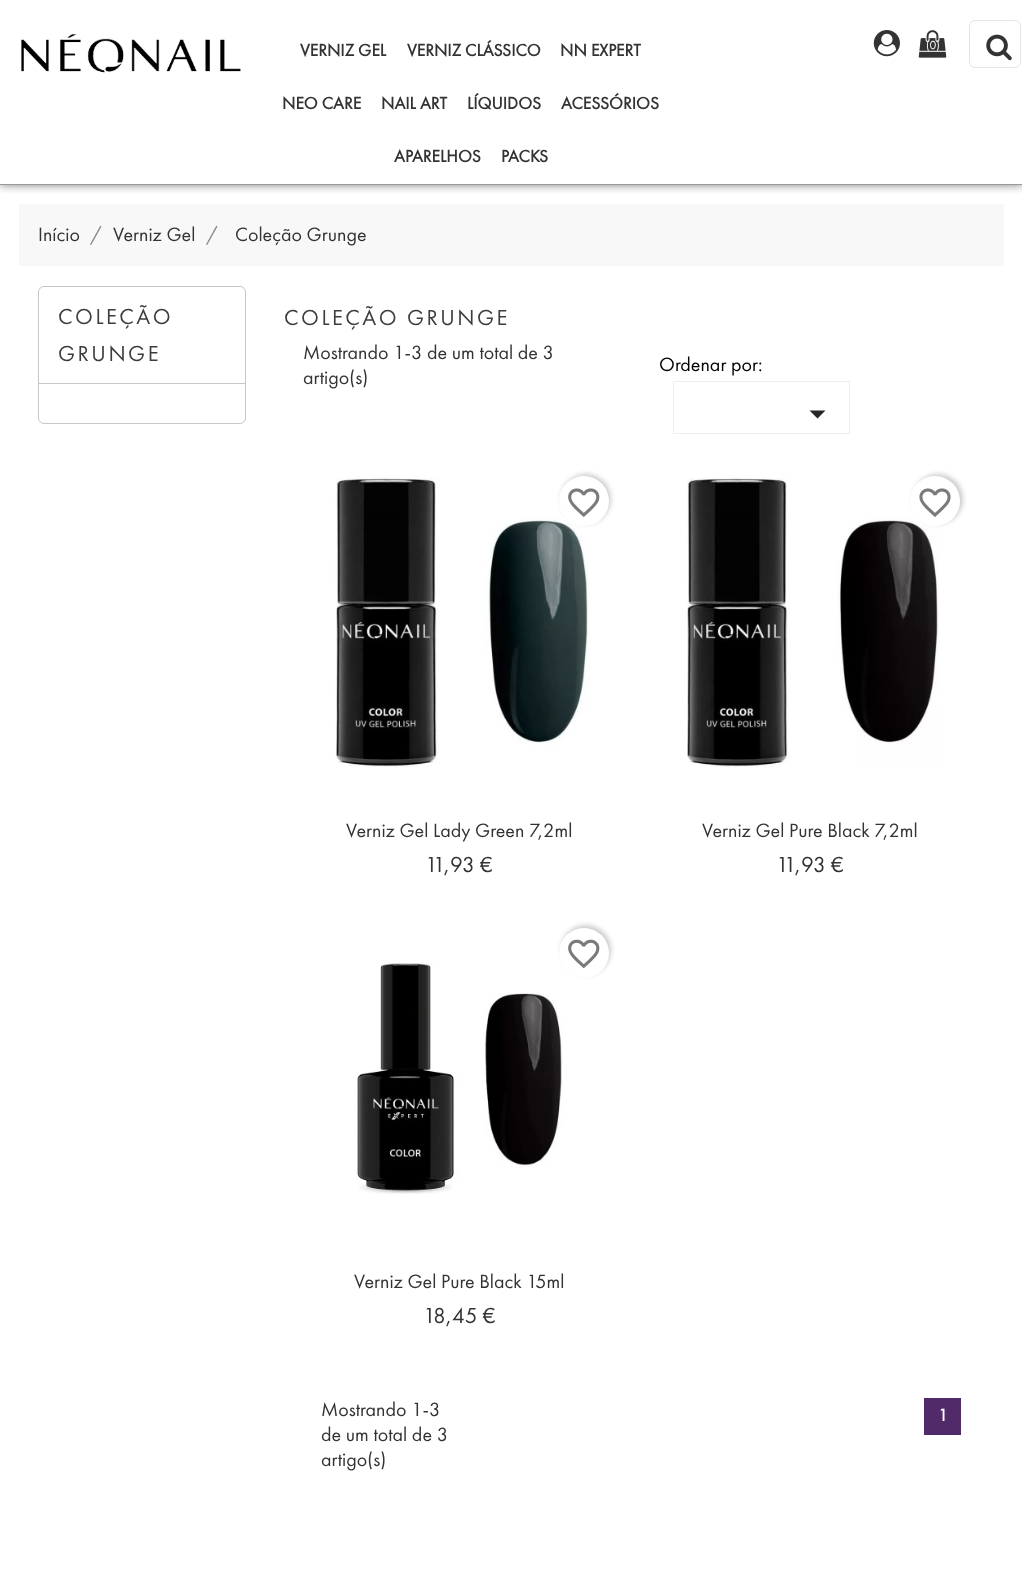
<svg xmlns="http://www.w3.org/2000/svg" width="1022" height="1586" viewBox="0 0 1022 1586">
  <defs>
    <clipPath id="clip1"><rect x="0" y="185" width="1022" height="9"/></clipPath>
  </defs>
  <rect width="100%" height="100%" fill="rgb(255,255,255)"/>
  <g clip-path="url(#clip1)">
    <rect x="0" y="0" width="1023" height="185" fill="rgba(0,0,0,0.5)" filter="blur(5px)"/>
  </g>
  <rect x="0" y="184" width="1022" height="1" fill="rgb(153,153,153)"/>
  <image x="21" y="34" width="220" height="39" href="pic1.png"/>
  <g font-family="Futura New" font-size="17.5" font-weight="bold" fill="rgb(51,51,51)">
    <text x="300" y="56">VERNIZ GEL</text>
    <text x="407" y="56">VERNIZ CLÁSSICO</text>
    <text x="560" y="56">NN EXPERT</text>
    <text x="282" y="109">NEO CARE</text>
    <text x="381" y="109">NAIL ART</text>
    <text x="467" y="109">LÍQUIDOS</text>
    <text x="561" y="109">ACESSÓRIOS</text>
    <text x="394" y="162">APARELHOS</text>
    <text x="501" y="162">PACKS</text>
  </g>
  <image x="873" y="30" width="27" height="27" href="pic2.png"/>
  <image x="918" y="30" width="29" height="28" href="pic3.png"/>
  <text x="926" y="49" font-family="Futura New" font-size="12" fill="rgb(255,255,255)">(0)</text>
  <rect x="969.5" y="20.5" width="51" height="47" rx="5.5" fill="none" stroke="rgb(228,228,228)"/>
  <image x="986" y="34" width="26" height="27" href="pic4.png"/>
  <rect x="19" y="204" width="985" height="62" fill="rgb(248,248,248)"/>
  <text x="38" y="241" font-family="Futura New" font-size="20" fill="rgb(51,51,51)">Início</text>
  <text x="90" y="241" font-family="Futura New" font-size="20" fill="rgb(135,135,135)">/</text>
  <text x="113" y="241" font-family="Futura New" font-size="20" fill="rgb(51,51,51)">Verniz Gel</text>
  <text x="206" y="241" font-family="Futura New" font-size="20" fill="rgb(135,135,135)">/</text>
  <text x="235" y="241" font-family="Futura New" font-size="20" fill="rgb(51,51,51)">Coleção Grunge</text>
  <rect x="38.5" y="286.5" width="207" height="137" rx="5.5" fill="none" stroke="rgb(199,199,199)"/>
  <rect x="39" y="383" width="206" height="1" fill="rgb(199,199,199)"/>
  <g font-family="Futura New" font-size="22.5" letter-spacing="2.5" fill="rgb(61,61,61)">
    <text>
      <tspan x="58" y="324">COLEÇÃO</tspan>
      <tspan x="58" y="361">GRUNGE</tspan>
    </text>
    <text x="284" y="325">COLEÇÃO GRUNGE</text>
  </g>
  <g font-family="Futura New" font-size="20" fill="rgb(51,51,51)">
    <text>
      <tspan x="303" y="359">Mostrando 1-3 de um total de 3</tspan>
      <tspan x="303" y="384">artigo(s)</tspan>
    </text>
  </g>
  <text x="659" y="371" font-family="Futura New" font-size="20" fill="rgb(0,0,0)">Ordenar por:</text>
  <rect x="673.5" y="381.5" width="176" height="52" fill="none" stroke="rgb(237,237,237)"/>
  <path d="M809.5 410.5H825.5L817.5 418.5Z" fill="rgb(38,38,38)"/>
  <image x="335" y="478" width="255" height="290" href="pic6.png"/>
  <rect x="561" y="474" width="50" height="50" rx="25" fill="rgba(0,0,0,0.2)" filter="blur(2.5px)"/>
  <circle cx="584" cy="501" r="25" fill="rgb(255,255,255)"/>
  <image x="568" y="488" width="32" height="29" href="pic5.png"/>
  <text x="346" y="837" font-family="Futura New" font-size="20" fill="rgb(51,51,51)">Verniz Gel Lady Green 7,2ml</text>
  <text x="425" y="872" font-family="Futura New" font-size="22.5" fill="rgb(51,51,51)">11,93 €</text>
  <image x="687" y="478" width="252" height="290" href="pic8.png"/>
  <rect x="913" y="474" width="50" height="50" rx="25" fill="rgba(0,0,0,0.2)" filter="blur(2.5px)"/>
  <circle cx="935" cy="501" r="25" fill="rgb(255,255,255)"/>
  <image x="919" y="488" width="32" height="29" href="pic7.png"/>
  <text x="702" y="837" font-family="Futura New" font-size="20" fill="rgb(51,51,51)">Verniz Gel Pure Black 7,2ml</text>
  <text x="776" y="872" font-family="Futura New" font-size="22.5" fill="rgb(51,51,51)">11,93 €</text>
  <image x="356" y="963" width="207" height="231" href="pic10.png"/>
  <rect x="561" y="925" width="50" height="50" rx="25" fill="rgba(0,0,0,0.2)" filter="blur(2.5px)"/>
  <circle cx="584" cy="953" r="25" fill="rgb(255,255,255)"/>
  <image x="568" y="939" width="32" height="30" href="pic9.png"/>
  <text x="354" y="1288" font-family="Futura New" font-size="20" fill="rgb(51,51,51)">Verniz Gel Pure Black 15ml</text>
  <text x="423" y="1323" font-family="Futura New" font-size="22.5" fill="rgb(51,51,51)">18,45 €</text>
  <g font-family="Futura New" font-size="20" fill="rgb(51,51,51)">
    <text>
      <tspan x="321" y="1416">Mostrando 1-3</tspan>
      <tspan x="321" y="1441">de um total de 3</tspan>
      <tspan x="321" y="1466">artigo(s)</tspan>
    </text>
  </g>
  <rect x="924" y="1398" width="37" height="37" fill="rgb(81,42,105)"/>
  <text x="938" y="1421" font-family="Futura New" font-size="17.5" font-weight="bold" fill="rgb(255,255,255)">1</text>
</svg>
